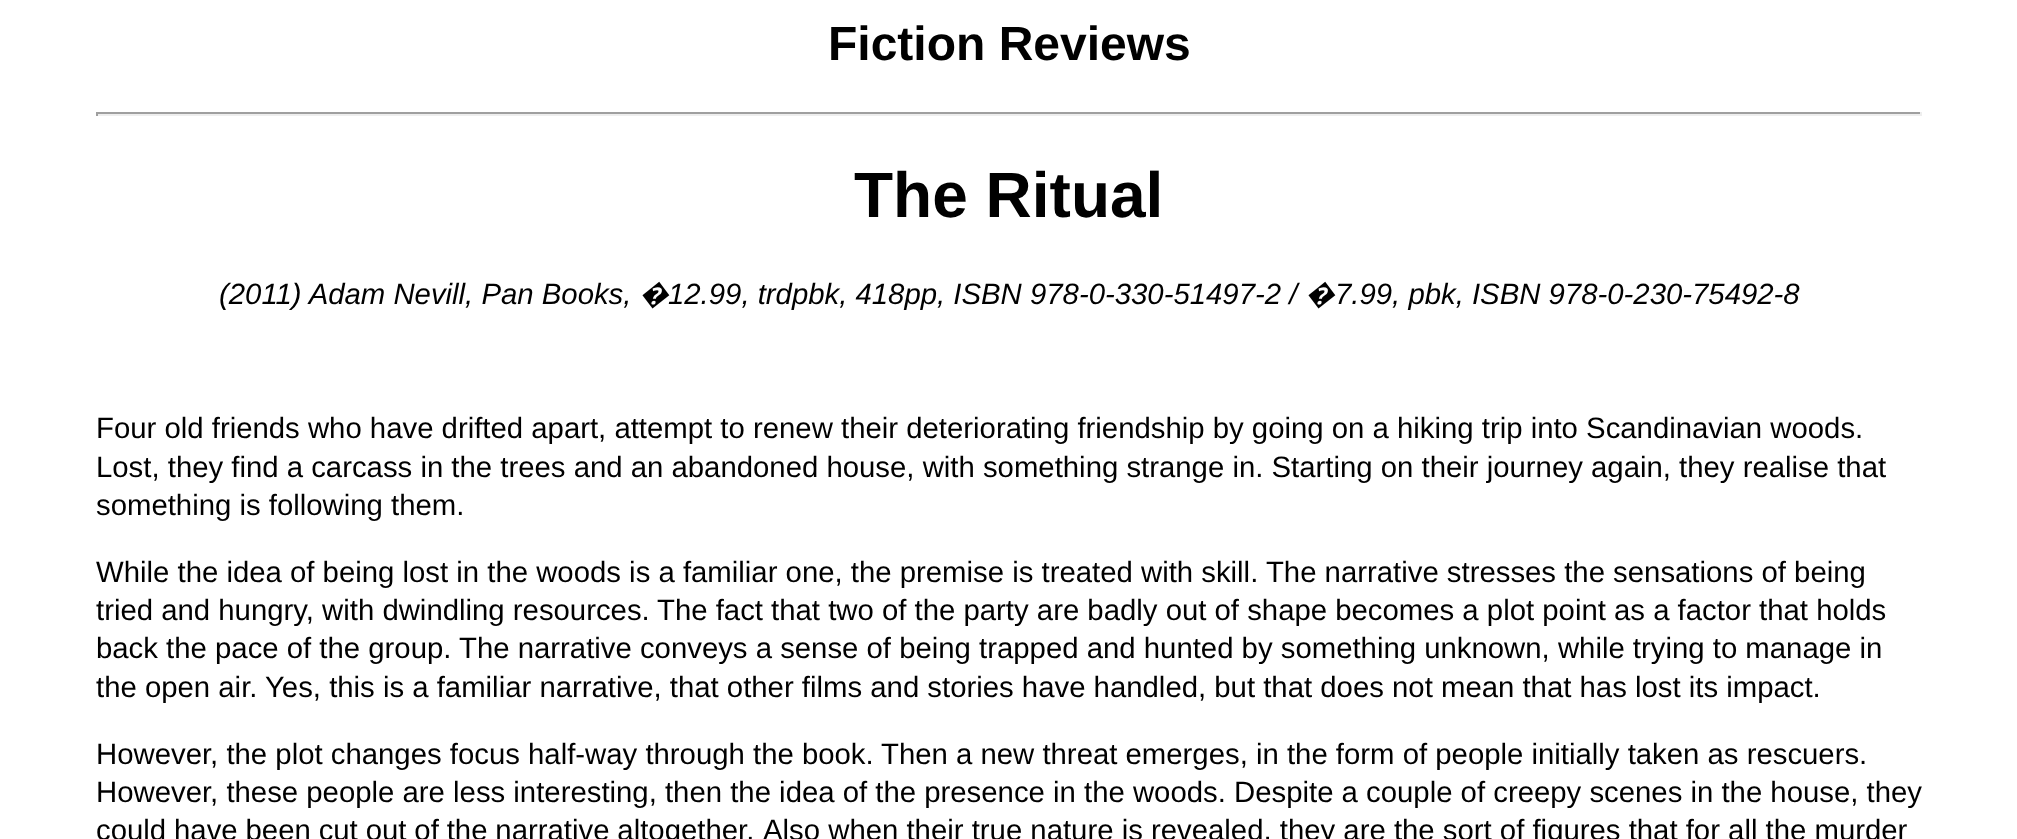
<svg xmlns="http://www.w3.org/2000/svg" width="2017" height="839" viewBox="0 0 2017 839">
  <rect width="100%" height="100%" fill="rgb(255,255,255)"/>
  <text x="828" y="60" font-family="Liberation Sans" font-size="48" font-weight="bold" fill="rgb(0,0,0)">Fiction Reviews</text>
  <rect x="96" y="112" width="1826" height="2" fill="rgb(159,159,159)"/>
  <rect x="1920" y="112" width="2" height="4" fill="rgb(238,238,238)"/>
  <rect x="96" y="114" width="1826" height="2" fill="rgb(238,238,238)"/>
  <rect x="96" y="112" width="2" height="4" fill="rgb(159,159,159)"/>
  <text x="854" y="217" font-family="Liberation Sans" font-size="64" font-weight="bold" fill="rgb(0,0,0)">The Ritual</text>
  <text x="219" y="304" font-family="Liberation Sans" font-size="29.33" font-style="italic" fill="rgb(0,0,0)">(2011) Adam Nevill, Pan Books,</text>
  <text x="639" y="304" font-family="Noto Sans" font-size="29.33" font-style="italic" fill="rgb(0,0,0)">�</text>
  <text x="668" y="304" font-family="Liberation Sans" font-size="29.33" font-style="italic" fill="rgb(0,0,0)">12.99, trdpbk, 418pp, ISBN 978-0-330-51497-2 /</text>
  <text x="1305" y="304" font-family="Noto Sans" font-size="29.33" font-style="italic" fill="rgb(0,0,0)">�</text>
  <text x="1335" y="304" font-family="Liberation Sans" font-size="29.33" font-style="italic" fill="rgb(0,0,0)">7.99, pbk, ISBN 978-0-230-75492-8</text>
  <g font-family="Liberation Sans" font-size="29.33" fill="rgb(0,0,0)">
    <text>
      <tspan x="96" y="438">Four old friends who have drifted apart, attempt to renew their deteriorating friendship by going on a hiking trip into Scandinavian woods.</tspan>
      <tspan x="96" y="477">Lost, they find a carcass in the trees and an abandoned house, with something strange in. Starting on their journey again, they realise that</tspan>
      <tspan x="96" y="515">something is following them.</tspan>
    </text>
    <text>
      <tspan x="96" y="582">While the idea of being lost in the woods is a familiar one, the premise is treated with skill. The narrative stresses the sensations of being</tspan>
      <tspan x="96" y="620">tried and hungry, with dwindling resources.</tspan>
    </text>
    <text x="657" y="620">The fact that two of the party are badly out of shape becomes a plot point as a factor that holds</text>
    <text x="96" y="658">back the pace of the group.</text>
    <text x="459" y="658">The narrative conveys a sense of being trapped and hunted by something unknown, while trying to manage in</text>
    <text x="96" y="697">the open air.</text>
    <text x="265" y="697">Yes, this is a familiar narrative, that other films and stories have handled, but that does not mean that has lost its impact.</text>
    <text x="96" y="764">However, the plot changes focus half-way through the book.</text>
    <text x="881" y="764">Then a new threat emerges, in the form of people initially taken as rescuers.</text>
    <text>
      <tspan x="96" y="802">However, these people are less interesting, then the idea of the presence in the woods. Despite a couple of creepy scenes in the house, they</tspan>
      <tspan x="96" y="840" word-spacing="-0.25">could have been cut out of the narrative altogether.</tspan>
    </text>
    <text x="763" y="840">Also when their true nature is revealed, they are the sort of figures that for all the murder</text>
  </g>
</svg>
